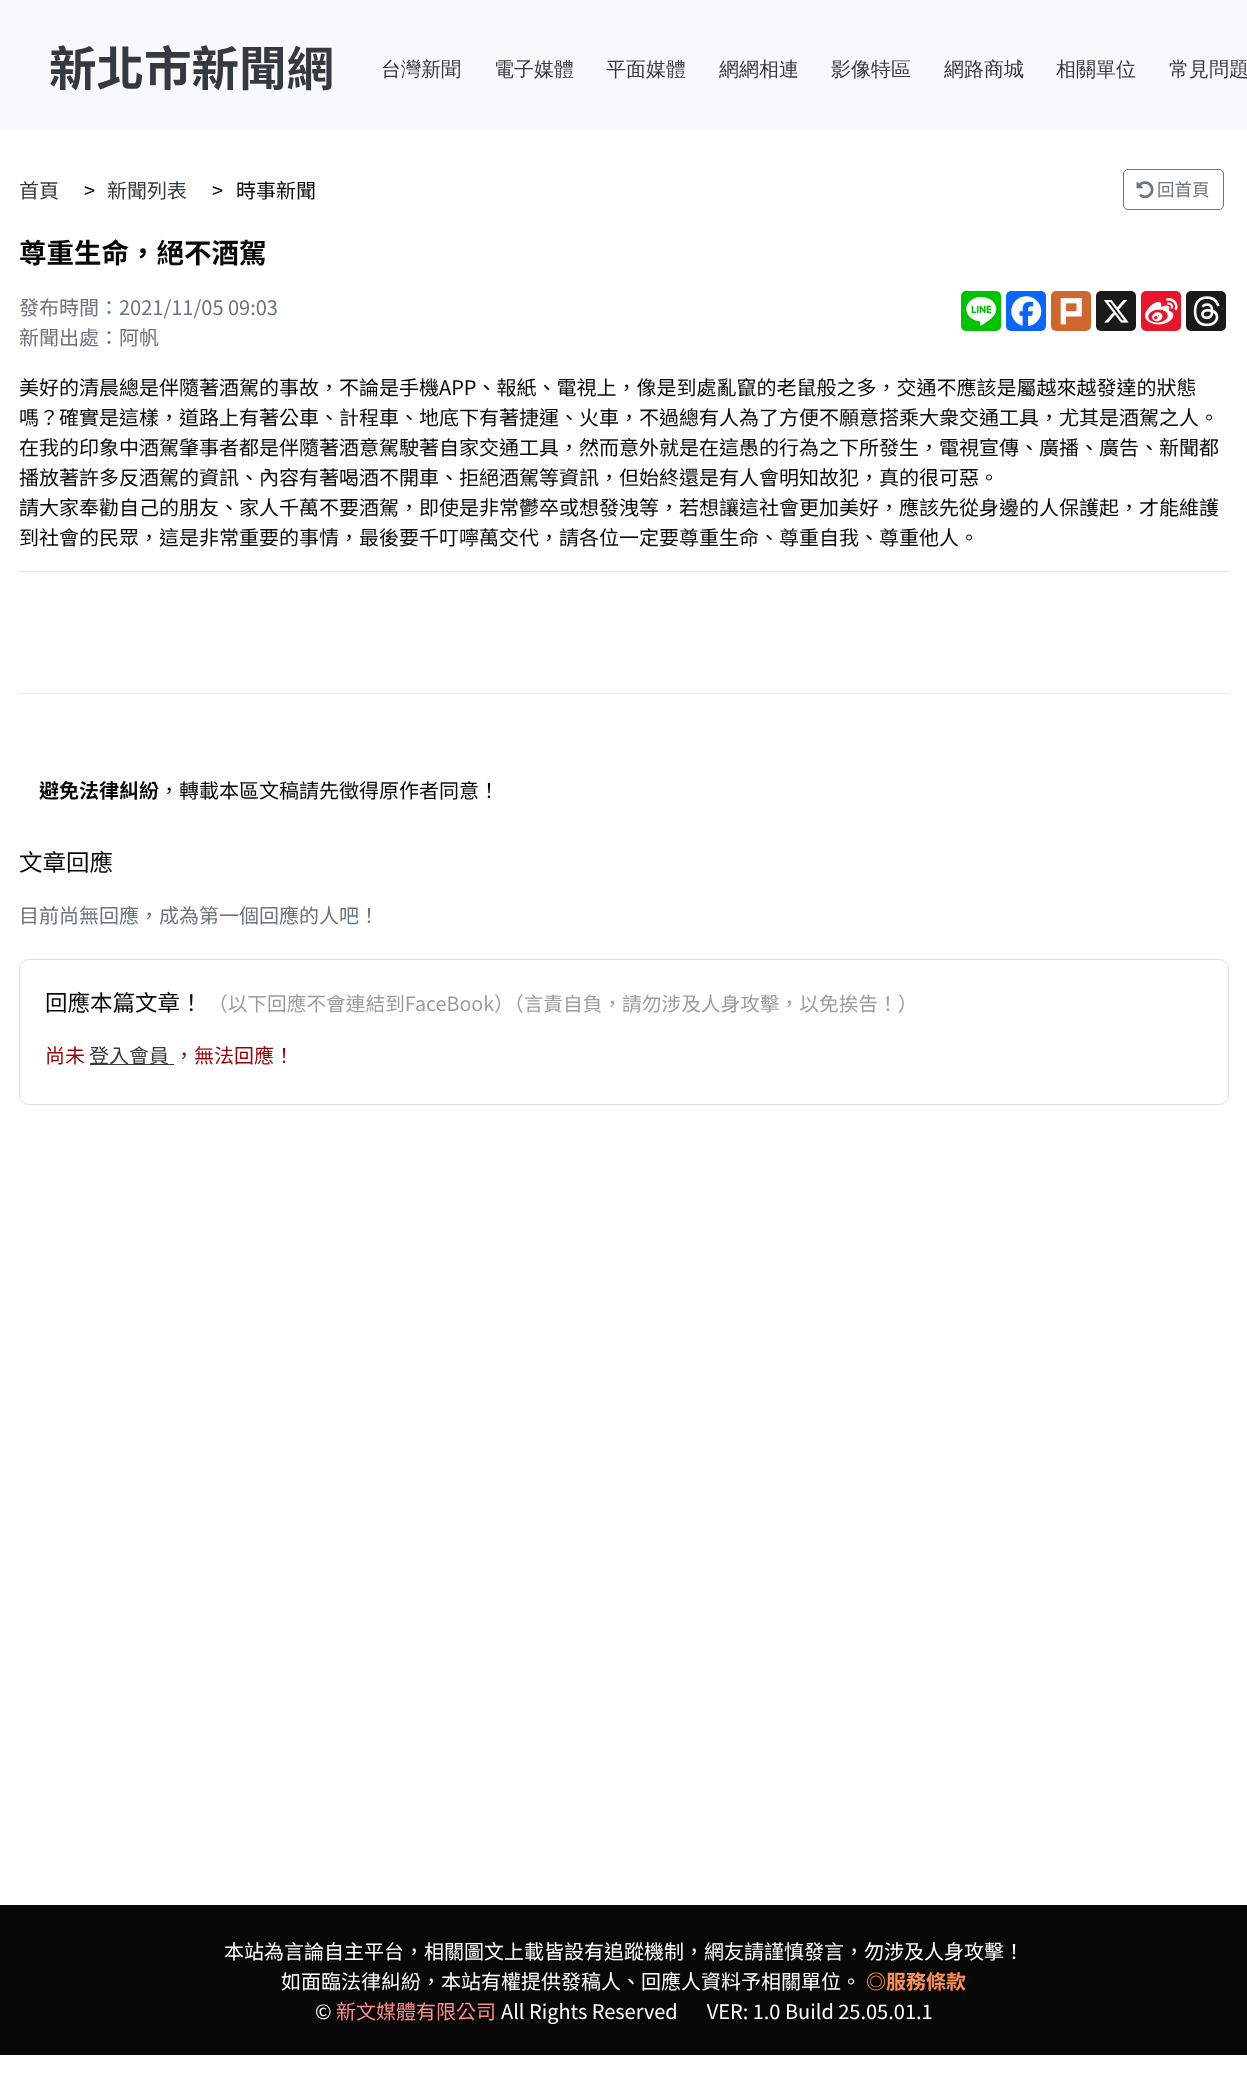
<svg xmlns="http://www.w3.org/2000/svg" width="1247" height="2097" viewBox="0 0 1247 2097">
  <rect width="100%" height="100%" fill="rgb(255,255,255)"/>
  <rect x="0" y="0" width="1247" height="131" fill="rgb(248,249,250)"/>
  <text x="49" y="86" font-family="Noto Sans TC" font-size="47.5" font-weight="bold" fill="rgb(52,58,64)">新北市新聞網</text>
  <g font-family="WenQuanYi Zen Hei" font-size="20" font-weight="500" fill="rgb(52,58,64)">
    <text x="381" y="76">台灣新聞</text>
    <text x="494" y="76">電子媒體</text>
    <text x="606" y="76">平面媒體</text>
    <text x="719" y="76">網網相連</text>
    <text x="831" y="76">影像特區</text>
    <text x="944" y="76">網路商城</text>
    <text x="1056" y="76">相關單位</text>
    <text x="1169" y="76">常見問題</text>
  </g>
  <text x="19" y="198" font-family="Noto Sans TC" font-size="20" fill="rgb(52,58,64)">首頁</text>
  <text x="84" y="198" font-family="Noto Sans TC" font-size="20" fill="rgb(8,8,8)">&gt;</text>
  <text x="107" y="198" font-family="Noto Sans TC" font-size="20" fill="rgb(52,58,64)">新聞列表</text>
  <g font-family="Noto Sans TC" font-size="20" fill="rgb(8,8,8)">
    <text x="212" y="198">&gt;</text>
    <text x="236" y="198">時事新聞</text>
  </g>
  <rect x="1123.5" y="169.5" width="100" height="40" rx="4.5" fill="none" stroke="rgb(108,117,125)"/>
  <image x="1136" y="181" width="18" height="18" href="pic1.png"/>
  <text x="1157" y="196" font-family="Noto Sans TC" font-size="17.5" fill="rgb(108,117,125)">回首頁</text>
  <text x="19" y="263" font-family="Noto Sans TC" font-size="27.5" font-weight="bold" fill="rgb(8,8,8)">尊重生命，絕不酒駕</text>
  <g font-family="Noto Sans TC" font-size="20" fill="rgb(108,117,125)">
    <text>
      <tspan x="19" y="315">發布時間：2021/11/05 09:03</tspan>
      <tspan x="19" y="345">新聞出處：阿帆</tspan>
    </text>
  </g>
  <rect x="961" y="291" width="40" height="40" rx="5" fill="rgb(0,195,0)"/>
  <image x="966" y="297" width="31" height="29" href="pic2.png"/>
  <rect x="1006" y="291" width="40" height="40" rx="5" fill="rgb(8,102,255)"/>
  <image x="1011" y="296" width="31" height="31" href="pic3.png"/>
  <rect x="1051" y="291" width="40" height="40" rx="5" fill="rgb(207,104,47)"/>
  <image x="1060" y="298" width="22" height="27" href="pic4.png"/>
  <rect x="1096" y="291" width="40" height="40" rx="5" fill="rgb(26,26,26)"/>
  <image x="1103" y="300" width="26" height="23" href="pic5.png"/>
  <rect x="1141" y="291" width="40" height="40" rx="5" fill="rgb(230,22,45)"/>
  <image x="1145" y="298" width="33" height="27" href="pic6.png"/>
  <rect x="1186" y="291" width="40" height="40" rx="5" fill="rgb(26,26,26)"/>
  <image x="1193" y="296" width="27" height="31" href="pic7.png"/>
  <g font-family="Noto Sans TC" font-size="20" fill="rgb(8,8,8)">
    <text>
      <tspan x="19" y="395">美好的清晨總是伴隨著酒駕的事故，不論是手機APP、報紙、電視上，像是到處亂竄的老鼠般之多，交通不應該是屬越來越發達的狀態</tspan>
      <tspan x="19" y="425">嗎？確實是這樣，道路上有著公車、計程車、地底下有著捷運、火車，不過總有人為了方便不願意搭乘大衆交通工具，尤其是酒駕之人。</tspan>
      <tspan x="19" y="455">在我的印象中酒駕肇事者都是伴隨著酒意駕駛著自家交通工具，然而意外就是在這愚的行為之下所發生，電視宣傳、廣播、廣告、新聞都</tspan>
      <tspan x="19" y="485">播放著許多反酒駕的資訊、內容有著喝酒不開車、拒絕酒駕等資訊，但始終還是有人會明知故犯，真的很可惡。</tspan>
      <tspan x="19" y="515">請大家奉勸自己的朋友、家人千萬不要酒駕，即使是非常鬱卒或想發洩等，若想讓這社會更加美好，應該先從身邊的人保護起，才能維護</tspan>
      <tspan x="19" y="545">到社會的民眾，這是非常重要的事情，最後要千叮嚀萬交代，請各位一定要尊重生命、尊重自我、尊重他人。</tspan>
    </text>
  </g>
  <rect x="19" y="571" width="1210" height="1" fill="rgb(230,230,230)"/>
  <rect x="19" y="693" width="1210" height="1" fill="rgb(230,230,230)"/>
  <text x="39" y="798" font-family="Noto Sans TC" font-size="20" font-weight="bold" fill="rgb(8,8,8)">避免法律糾紛</text>
  <text x="159" y="798" font-family="Noto Sans TC" font-size="20" fill="rgb(8,8,8)">，轉載本區文稿請先徵得原作者同意！</text>
  <text x="19" y="871" font-family="Noto Sans TC" font-size="23.5" fill="rgb(8,8,8)">文章回應</text>
  <text x="19" y="923" font-family="Noto Sans TC" font-size="20" fill="rgb(108,117,125)">目前尚無回應，成為第一個回應的人吧！</text>
  <rect x="19.5" y="959.5" width="1209" height="145" rx="9.5" fill="none" stroke="rgb(224,224,224)"/>
  <text x="45" y="1011" font-family="Noto Sans TC" font-size="22.5" fill="rgb(8,8,8)">回應本篇文章！</text>
  <text x="208" y="1011" font-family="Noto Sans TC" font-size="19.7" fill="rgb(157,157,157)">（以下回應不會連結到FaceBook）（言責自負，請勿涉及人身攻擊，以免挨告！）</text>
  <text x="45" y="1063" font-family="Noto Sans TC" font-size="20" fill="rgb(151,0,0)">尚未</text>
  <rect x="90" y="1064" width="84" height="1" fill="rgb(52,58,64)"/>
  <text x="89" y="1063" font-family="Noto Sans TC" font-size="20" fill="rgb(52,58,64)">登入會員</text>
  <text x="174" y="1063" font-family="Noto Sans TC" font-size="20" fill="rgb(151,0,0)">，無法回應！</text>
  <rect x="0" y="1905" width="1247" height="150" fill="rgb(8,8,8)"/>
  <g font-family="Noto Sans TC" font-size="20" fill="rgb(255,255,255)">
    <text x="224" y="1959">本站為言論自主平台，相關圖文上載皆設有追蹤機制，網友請謹慎發言，勿涉及人身攻擊！</text>
    <text x="281" y="1989">如面臨法律糾紛，本站有權提供發稿人、回應人資料予相關單位。</text>
  </g>
  <text x="866" y="1989" font-family="Noto Sans TC" font-size="20" font-weight="bold" fill="rgb(252,143,84)">◎服務條款</text>
  <text x="315" y="2019" font-family="Noto Sans TC" font-size="20" fill="rgb(255,255,255)">©</text>
  <text x="336" y="2019" font-family="Noto Sans TC" font-size="20" fill="rgb(255,138,138)">新文媒體有限公司</text>
  <text x="501" y="2019" font-family="Noto Sans TC" font-size="20" fill="rgb(255,255,255)">All Rights Reserved   VER: 1.0 Build 25.05.01.1</text>
</svg>
